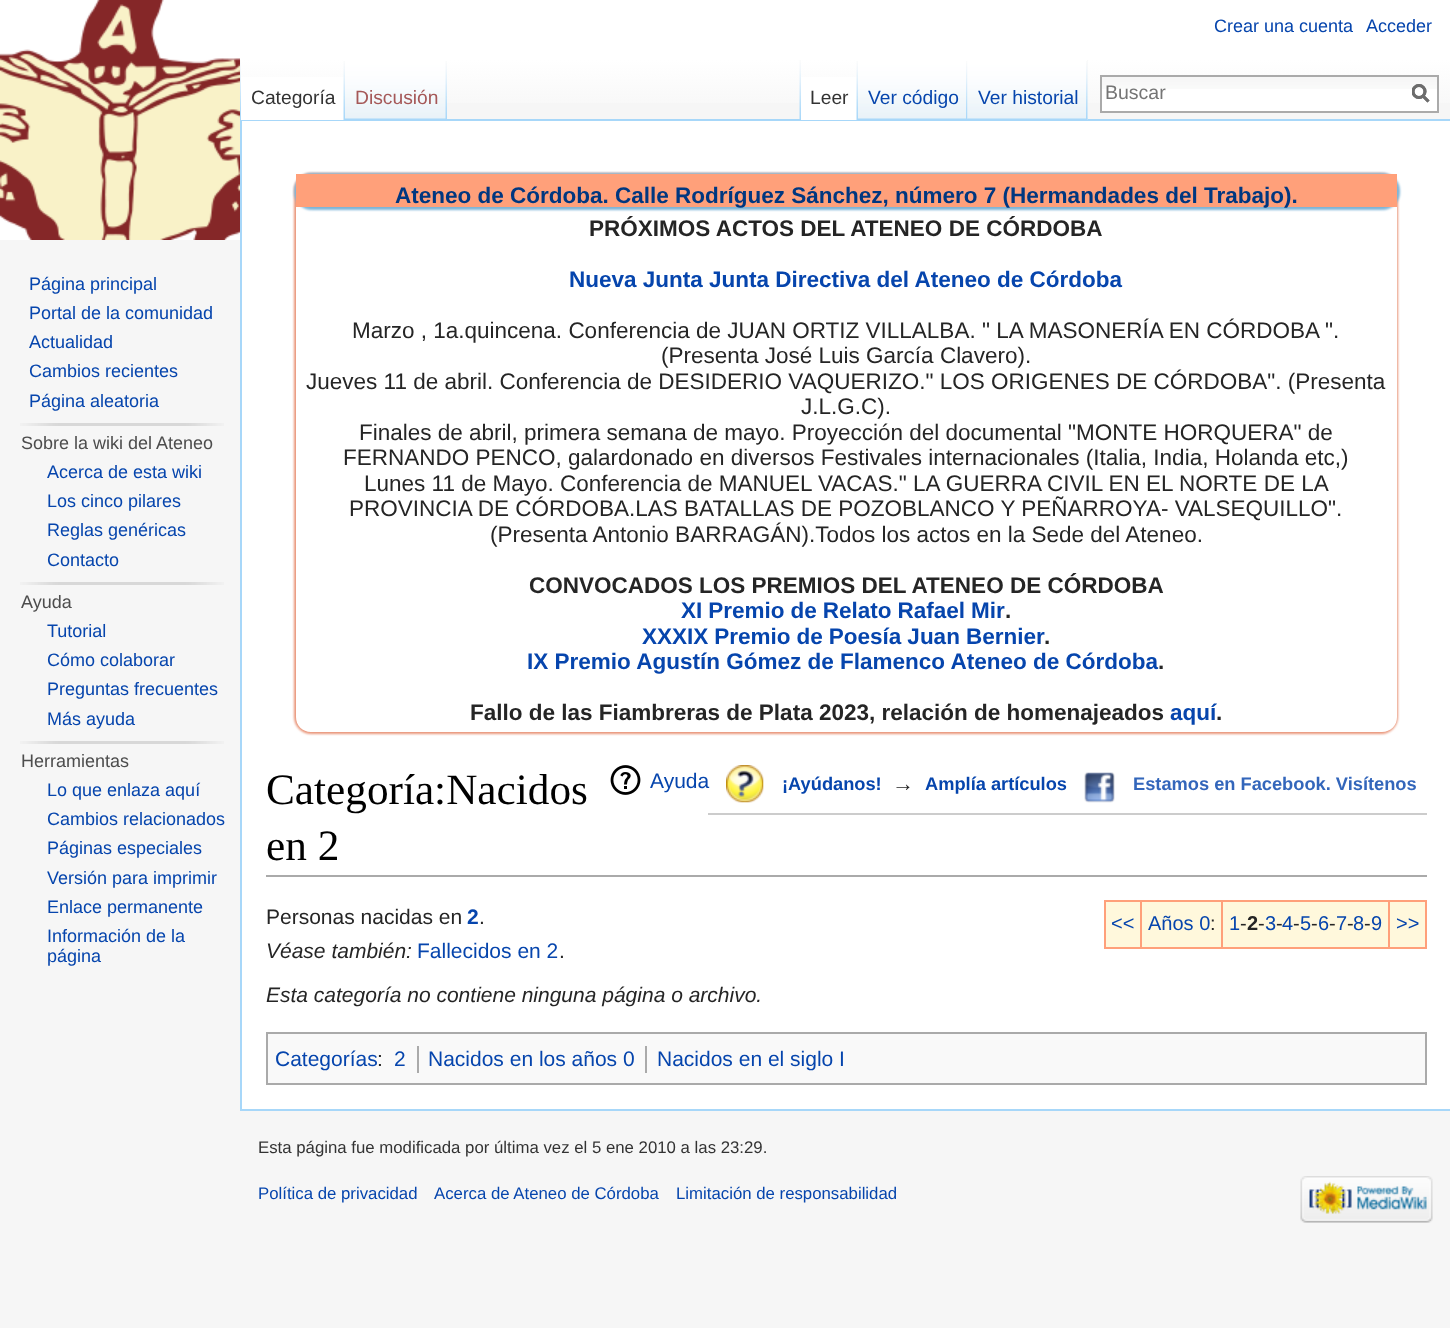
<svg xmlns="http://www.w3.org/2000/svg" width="1450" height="1328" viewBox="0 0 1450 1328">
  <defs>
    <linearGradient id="g1" gradientUnits="userSpaceOnUse" x1="725" y1="0" x2="725" y2="120"><stop offset="0.5" stop-color="rgb(255,255,255)"/><stop offset="1" stop-color="rgb(246,246,246)"/></linearGradient>
    <clipPath id="clip1"><rect x="1412" y="84" width="18" height="20"/></clipPath>
    <clipPath id="clip2"><path d="M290 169H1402V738H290ZM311 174H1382C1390.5 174 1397 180.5 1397 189V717C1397 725.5 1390.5 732 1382 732H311C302.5 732 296 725.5 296 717V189C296 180.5 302.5 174 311 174Z" clip-rule="evenodd"/></clipPath>
  </defs>
  <rect width="100%" height="100%" fill="rgb(246,246,246)"/>
  <rect x="240" y="0" width="1210" height="103" fill="url(#g1)"/>
  <g font-family="Liberation Sans" font-size="18" fill="rgb(6,69,173)">
    <text x="1214" y="32">Crear una cuenta</text>
    <text x="1366" y="32">Acceder</text>
  </g>
  <image x="240" y="60" width="1" height="59" href="pic1.png"/>
  <rect x="240" y="119" width="1210" height="2" fill="rgb(167,215,249)"/>
  <rect x="240" y="1109" width="1210" height="2" fill="rgb(167,215,249)"/>
  <rect x="240" y="119" width="2" height="991" fill="rgb(167,215,249)"/>
  <rect x="241" y="77" width="104" height="43" fill="rgb(255,255,255)"/>
  <image x="343" y="61" width="2" height="59" href="pic2.png"/>
  <text x="251" y="104" font-family="Liberation Sans" font-size="19.25" fill="rgb(51,51,51)">Categoría</text>
  <image x="345" y="60" width="102" height="60" href="pic3.png"/>
  <image x="445" y="61" width="2" height="58" href="pic4.png"/>
  <text x="355" y="104" font-family="Liberation Sans" font-size="19.25" fill="rgb(165,88,88)">Discusión</text>
  <image x="799" y="60" width="2" height="59" href="pic5.png"/>
  <rect x="801" y="77" width="57" height="43" fill="rgb(255,255,255)"/>
  <image x="856" y="61" width="2" height="59" href="pic2.png"/>
  <text x="810" y="104" font-family="Liberation Sans" font-size="19.25" fill="rgb(51,51,51)">Leer</text>
  <image x="858" y="60" width="110" height="60" href="pic6.png"/>
  <image x="966" y="61" width="2" height="59" href="pic7.png"/>
  <text x="868" y="104" font-family="Liberation Sans" font-size="19.25" fill="rgb(6,69,173)">Ver código</text>
  <rect x="1087" y="60" width="1" height="60" fill="rgb(243,243,243)"/>
  <image x="967" y="60" width="121" height="60" href="pic8.png"/>
  <image x="1086" y="61" width="2" height="59" href="pic7.png"/>
  <text x="978" y="104" font-family="Liberation Sans" font-size="19.25" fill="rgb(6,69,173)">Ver historial</text>
  <rect x="1102" y="89" width="335" height="22" fill="rgb(255,255,255)"/>
  <image x="1102" y="77" width="335" height="12" href="pic9.png"/>
  <rect x="1101" y="76" width="337" height="36" fill="none" stroke="rgb(170,170,170)" stroke-width="2"/>
  <path d="M1428.5 101.5L1422.5 95.5" fill="none" stroke="rgb(108,108,108)" stroke-width="3"/>
  <g clip-path="url(#clip1)">
    <circle cx="1419" cy="91.5" r="6" fill="none" stroke="rgb(108,108,108)" stroke-width="3"/>
  </g>
  <text x="1105" y="99" font-family="Liberation Sans" font-size="19.5" fill="rgb(117,117,117)">Buscar</text>
  <path d="M1428.5 101.5L1422.5 95.5" fill="none" stroke="rgb(108,108,108)" stroke-width="3"/>
  <g clip-path="url(#clip1)">
    <circle cx="1419" cy="91.5" r="6" fill="none" stroke="rgb(108,108,108)" stroke-width="3"/>
  </g>
  <image x="0" y="0" width="240" height="240" href="pic10.png"/>
  <g font-family="Liberation Sans" font-size="18" fill="rgb(6,69,173)">
    <text>
      <tspan x="29" y="290">Página principal</tspan>
      <tspan x="29" y="319">Portal de la comunidad</tspan>
      <tspan x="29" y="348">Actualidad</tspan>
      <tspan x="29" y="377">Cambios recientes</tspan>
      <tspan x="29" y="407">Página aleatoria</tspan>
    </text>
  </g>
  <image x="20" y="423" width="204" height="3" href="pic11.png"/>
  <text x="21" y="449" font-family="Liberation Sans" font-size="18" fill="rgb(77,77,77)">Sobre la wiki del Ateneo</text>
  <g font-family="Liberation Sans" font-size="18" fill="rgb(6,69,173)">
    <text>
      <tspan x="47" y="478">Acerca de esta wiki</tspan>
      <tspan x="47" y="507">Los cinco pilares</tspan>
      <tspan x="47" y="536">Reglas genéricas</tspan>
      <tspan x="47" y="566">Contacto</tspan>
    </text>
  </g>
  <image x="20" y="582" width="204" height="3" href="pic11.png"/>
  <text x="21" y="608" font-family="Liberation Sans" font-size="18" fill="rgb(77,77,77)">Ayuda</text>
  <g font-family="Liberation Sans" font-size="18" fill="rgb(6,69,173)">
    <text>
      <tspan x="47" y="637">Tutorial</tspan>
      <tspan x="47" y="666">Cómo colaborar</tspan>
      <tspan x="47" y="695">Preguntas frecuentes</tspan>
      <tspan x="47" y="725">Más ayuda</tspan>
    </text>
  </g>
  <image x="20" y="741" width="204" height="3" href="pic11.png"/>
  <text x="21" y="767" font-family="Liberation Sans" font-size="18" fill="rgb(77,77,77)">Herramientas</text>
  <g font-family="Liberation Sans" font-size="18" fill="rgb(6,69,173)">
    <text>
      <tspan x="47" y="796">Lo que enlaza aquí</tspan>
      <tspan x="47" y="825">Cambios relacionados</tspan>
      <tspan x="47" y="854">Páginas especiales</tspan>
      <tspan x="47" y="884">Versión para imprimir</tspan>
      <tspan x="47" y="913">Enlace permanente</tspan>
      <tspan x="47" y="942">Información de la</tspan>
      <tspan x="47" y="962">página</tspan>
    </text>
  </g>
  <rect x="242" y="121" width="1208" height="988" fill="rgb(255,255,255)"/>
  <g clip-path="url(#clip2)">
    <rect x="294" y="173" width="1104" height="561" rx="17" fill="rgb(233,150,122)" filter="blur(1px)"/>
  </g>
  <rect x="294" y="173" width="1106" height="37" rx="18" fill="rgb(127,181,215)" filter="blur(1px)"/>
  <rect x="296" y="174" width="1101" height="33" fill="rgb(255,160,122)"/>
  <text x="395" y="203" font-family="Liberation Sans" font-size="22.5" font-weight="bold" fill="rgb(0,55,128)">Ateneo de Córdoba. Calle Rodríguez Sánchez, número 7 (Hermandades del Trabajo).</text>
  <text x="589" y="236" font-family="Liberation Sans" font-size="22.5" font-weight="bold" fill="rgb(37,37,37)">PRÓXIMOS ACTOS DEL ATENEO DE CÓRDOBA</text>
  <text x="569" y="287" font-family="Liberation Sans" font-size="22.5" font-weight="bold" fill="rgb(6,69,173)">Nueva Junta Junta Directiva del Ateneo de Córdoba</text>
  <g font-family="Liberation Sans" font-size="22.5" fill="rgb(37,37,37)">
    <text x="352" y="338">Marzo , 1a.quincena. Conferencia de JUAN ORTIZ VILLALBA. " LA MASONERÍA EN CÓRDOBA ".</text>
    <text x="661" y="363">(Presenta José Luis García Clavero).</text>
    <text x="306" y="389">Jueves 11 de abril. Conferencia de DESIDERIO VAQUERIZO." LOS ORIGENES DE CÓRDOBA". (Presenta</text>
    <text x="801" y="414">J.L.G.C).</text>
    <text x="359" y="440">Finales de abril, primera semana de mayo. Proyección del documental "MONTE HORQUERA" de</text>
    <text x="343" y="465">FERNANDO PENCO, galardonado en diversos Festivales internacionales (Italia, India, Holanda etc,)</text>
    <text x="364" y="491">Lunes 11 de Mayo. Conferencia de MANUEL VACAS." LA GUERRA CIVIL EN EL NORTE DE LA</text>
    <text x="349" y="516">PROVINCIA DE CÓRDOBA.LAS BATALLAS DE POZOBLANCO Y PEÑARROYA- VALSEQUILLO".</text>
    <text x="490" y="542">(Presenta Antonio BARRAGÁN).Todos los actos en la Sede del Ateneo.</text>
  </g>
  <text x="529" y="593" font-family="Liberation Sans" font-size="22.5" font-weight="bold" fill="rgb(37,37,37)">CONVOCADOS LOS PREMIOS DEL ATENEO DE CÓRDOBA</text>
  <text x="681" y="618" word-spacing="-0.25" font-family="Liberation Sans" font-size="22.5" font-weight="bold" fill="rgb(6,69,173)">XI Premio de Relato Rafael Mir</text>
  <text x="1005" y="618" font-family="Liberation Sans" font-size="22.5" font-weight="bold" fill="rgb(37,37,37)">.</text>
  <text x="642" y="644" word-spacing="-0.25" font-family="Liberation Sans" font-size="22.5" font-weight="bold" fill="rgb(6,69,173)">XXXIX Premio de Poesía Juan Bernier</text>
  <text x="1044" y="644" font-family="Liberation Sans" font-size="22.5" font-weight="bold" fill="rgb(37,37,37)">.</text>
  <text x="527" y="669" font-family="Liberation Sans" font-size="22.5" font-weight="bold" fill="rgb(6,69,173)">IX Premio Agustín Gómez de Flamenco Ateneo de Córdoba</text>
  <g font-family="Liberation Sans" font-size="22.5" font-weight="bold" fill="rgb(37,37,37)">
    <text x="1158" y="669">.</text>
    <text x="470" y="720">Fallo de las Fiambreras de Plata 2023, relación de homenajeados</text>
  </g>
  <text x="1170" y="720" font-family="Liberation Sans" font-size="22.5" font-weight="bold" fill="rgb(6,69,173)">aquí</text>
  <text x="1216" y="720" font-family="Liberation Sans" font-size="22.5" font-weight="bold" fill="rgb(37,37,37)">.</text>
  <rect x="708" y="813" width="719" height="2" fill="rgb(204,204,204)"/>
  <image x="726" y="765" width="38" height="38" href="pic12.png"/>
  <text x="782" y="790" font-family="Liberation Sans" font-size="18.25" font-weight="bold" fill="rgb(6,69,173)">¡Ayúdanos!</text>
  <text x="892" y="791" font-family="Liberation Sans" font-size="22" font-weight="bold" fill="rgb(37,37,37)">→</text>
  <text x="925" y="790" font-family="Liberation Sans" font-size="18.25" font-weight="bold" fill="rgb(6,69,173)">Amplía artículos</text>
  <image x="1084" y="772" width="31" height="31" href="pic13.png"/>
  <text x="1133" y="790" font-family="Liberation Sans" font-size="18.25" font-weight="bold" fill="rgb(51,102,187)">Estamos en Facebook. Visítenos</text>
  <rect x="266" y="875" width="1161" height="2" fill="rgb(170,170,170)"/>
  <g font-family="Liberation Serif" font-size="43.25" fill="rgb(0,0,0)">
    <text>
      <tspan x="266" y="804">Categoría:Nacidos</tspan>
      <tspan x="266" y="860">en 2</tspan>
    </text>
  </g>
  <image x="610" y="765" width="31" height="30" href="pic14.png"/>
  <text x="650" y="788" font-family="Liberation Sans" font-size="21" fill="rgb(6,69,173)">Ayuda</text>
  <text x="266" y="924" font-family="Liberation Sans" font-size="21" fill="rgb(37,37,37)">Personas nacidas en</text>
  <text x="467" y="924" font-family="Liberation Sans" font-size="21" font-weight="bold" fill="rgb(6,69,173)">2</text>
  <text x="479" y="924" font-family="Liberation Sans" font-size="21" fill="rgb(37,37,37)">.</text>
  <text x="266" y="958" font-family="Liberation Sans" font-size="21" font-style="italic" fill="rgb(37,37,37)">Véase también:</text>
  <text x="417" y="958" font-family="Liberation Sans" font-size="21" fill="rgb(6,69,173)">Fallecidos en 2</text>
  <text x="559" y="958" font-family="Liberation Sans" font-size="21" fill="rgb(37,37,37)">.</text>
  <rect x="1106" y="902" width="319" height="45" fill="rgb(255,248,220)"/>
  <rect x="1104" y="900" width="323" height="2" fill="rgb(255,160,122)"/>
  <rect x="1425" y="900" width="2" height="48" fill="rgb(255,160,122)"/>
  <rect x="1104" y="947" width="323" height="2" fill="rgb(255,160,122)"/>
  <rect x="1104" y="900" width="2" height="48" fill="rgb(255,160,122)"/>
  <text x="1111" y="930" font-family="Liberation Sans" font-size="20" fill="rgb(6,69,173)">&lt;&lt;</text>
  <rect x="1140" y="900" width="2" height="48" fill="rgb(255,160,122)"/>
  <text x="1148" y="930" font-family="Liberation Sans" font-size="20" fill="rgb(6,69,173)">Años 0</text>
  <text x="1210" y="930" font-family="Liberation Sans" font-size="20" fill="rgb(37,37,37)">:</text>
  <rect x="1221" y="900" width="2" height="48" fill="rgb(255,160,122)"/>
  <text x="1229" y="930" font-family="Liberation Sans" font-size="20" fill="rgb(6,69,173)">1</text>
  <text x="1240" y="930" font-family="Liberation Sans" font-size="20" fill="rgb(37,37,37)">-</text>
  <text x="1247" y="930" font-family="Liberation Sans" font-size="20" font-weight="bold" fill="rgb(37,37,37)">2</text>
  <text x="1258" y="930" font-family="Liberation Sans" font-size="20" fill="rgb(37,37,37)">-</text>
  <text x="1265" y="930" font-family="Liberation Sans" font-size="20" fill="rgb(6,69,173)">3</text>
  <text x="1276" y="930" font-family="Liberation Sans" font-size="20" fill="rgb(37,37,37)">-</text>
  <text x="1282" y="930" font-family="Liberation Sans" font-size="20" fill="rgb(6,69,173)">4</text>
  <text x="1293" y="930" font-family="Liberation Sans" font-size="20" fill="rgb(37,37,37)">-</text>
  <text x="1300" y="930" font-family="Liberation Sans" font-size="20" fill="rgb(6,69,173)">5</text>
  <text x="1311" y="930" font-family="Liberation Sans" font-size="20" fill="rgb(37,37,37)">-</text>
  <text x="1318" y="930" font-family="Liberation Sans" font-size="20" fill="rgb(6,69,173)">6</text>
  <text x="1329" y="930" font-family="Liberation Sans" font-size="20" fill="rgb(37,37,37)">-</text>
  <text x="1336" y="930" font-family="Liberation Sans" font-size="20" fill="rgb(6,69,173)">7</text>
  <text x="1347" y="930" font-family="Liberation Sans" font-size="20" fill="rgb(37,37,37)">-</text>
  <text x="1353" y="930" font-family="Liberation Sans" font-size="20" fill="rgb(6,69,173)">8</text>
  <text x="1364" y="930" font-family="Liberation Sans" font-size="20" fill="rgb(37,37,37)">-</text>
  <text x="1371" y="930" font-family="Liberation Sans" font-size="20" fill="rgb(6,69,173)">9</text>
  <rect x="1388" y="900" width="2" height="48" fill="rgb(255,160,122)"/>
  <text x="1396" y="930" font-family="Liberation Sans" font-size="20" fill="rgb(6,69,173)">&gt;&gt;</text>
  <text x="266" y="1002" font-family="Liberation Sans" font-size="21" font-style="italic" fill="rgb(37,37,37)">Esta categoría no contiene ninguna página o archivo.</text>
  <rect x="267" y="1033" width="1159" height="51" fill="rgb(249,249,249)" stroke="rgb(170,170,170)" stroke-width="2"/>
  <text x="275" y="1066" font-family="Liberation Sans" font-size="21" fill="rgb(6,69,173)">Categorías</text>
  <text x="377" y="1066" font-family="Liberation Sans" font-size="21" fill="rgb(37,37,37)">:</text>
  <text x="394" y="1066" font-family="Liberation Sans" font-size="21" fill="rgb(6,69,173)">2</text>
  <rect x="417" y="1046" width="2" height="27" fill="rgb(170,170,170)"/>
  <text x="428" y="1066" font-family="Liberation Sans" font-size="21" fill="rgb(6,69,173)">Nacidos en los años 0</text>
  <rect x="645" y="1046" width="2" height="27" fill="rgb(170,170,170)"/>
  <text x="657" y="1066" font-family="Liberation Sans" font-size="21" fill="rgb(6,69,173)">Nacidos en el siglo I</text>
  <text x="258" y="1153" font-family="Liberation Sans" font-size="16.8" fill="rgb(51,51,51)">Esta página fue modificada por última vez el 5 ene 2010 a las 23:29.</text>
  <g font-family="Liberation Sans" font-size="16.8" fill="rgb(6,69,173)">
    <text x="258" y="1199">Política de privacidad</text>
    <text x="434" y="1199">Acerca de Ateneo de Córdoba</text>
    <text x="676" y="1199">Limitación de responsabilidad</text>
  </g>
  <image x="1300" y="1176" width="133" height="47" href="pic15.png"/>
</svg>
